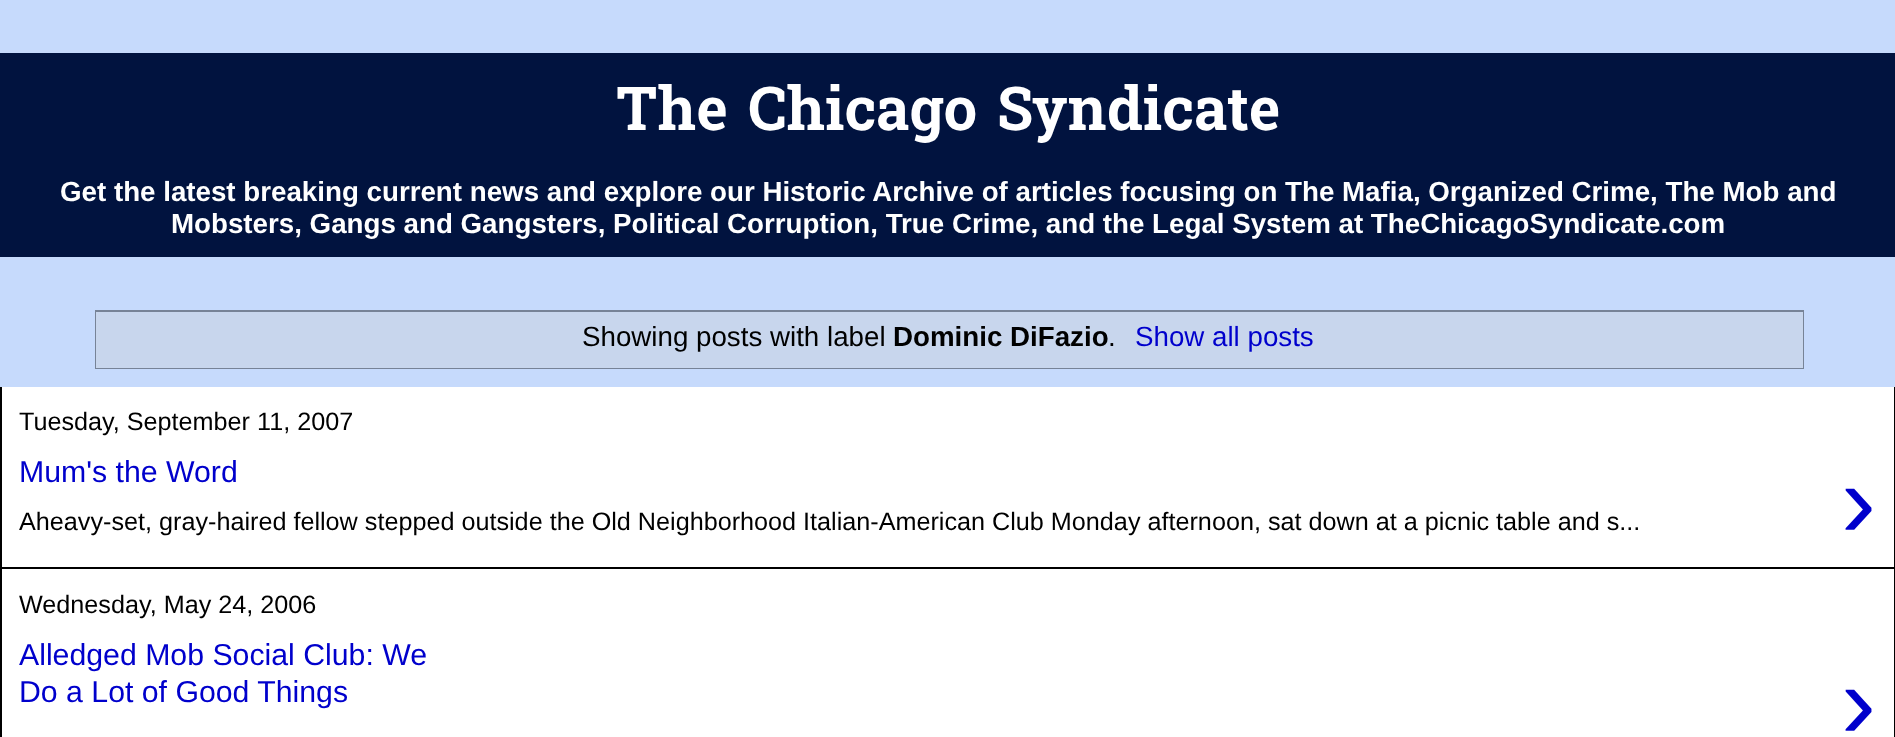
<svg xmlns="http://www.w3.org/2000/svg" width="1895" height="737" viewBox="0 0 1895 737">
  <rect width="100%" height="100%" fill="rgb(198,218,252)"/>
  <rect x="0" y="53" width="1895" height="204" fill="rgb(1,19,63)"/>
  <text x="616" y="130" font-family="Hanuman" font-size="60.5" font-weight="bold" fill="rgb(255,255,255)">The Chicago Syndicate</text>
  <g font-family="Liberation Sans" font-size="27.72" font-weight="bold" fill="rgb(255,255,255)">
    <text x="60" y="201">Get the latest breaking current news and explore our Historic Archive of articles focusing on The Mafia, Organized Crime, The Mob and</text>
    <text x="171" y="233">Mobsters, Gangs and Gangsters, Political Corruption, True Crime, and the Legal System at TheChicagoSyndicate.com</text>
  </g>
  <rect x="96" y="311" width="1707" height="57" fill="none" stroke="rgb(119,131,151)" stroke-width="2"/>
  <rect x="96" y="312" width="1707" height="56" fill="rgb(200,214,237)"/>
  <text x="582" y="346" font-family="Liberation Sans" font-size="27.72" fill="rgb(0,0,0)">Showing posts with label</text>
  <text x="893" y="346" font-family="Liberation Sans" font-size="27.72" font-weight="bold" fill="rgb(0,0,0)">Dominic DiFazio</text>
  <text x="1108" y="346" font-family="Liberation Sans" font-size="27.72" fill="rgb(0,0,0)">.</text>
  <text x="1135" y="346" font-family="Liberation Sans" font-size="27.72" fill="rgb(0,0,204)">Show all posts</text>
  <rect x="2" y="387" width="1892" height="180" fill="rgb(255,255,255)"/>
  <rect x="1894" y="387" width="1" height="350" fill="rgb(0,0,0)"/>
  <rect x="0" y="567" width="1895" height="2" fill="rgb(0,0,0)"/>
  <rect x="0" y="387" width="2" height="350" fill="rgb(0,0,0)"/>
  <text x="19" y="430" font-family="Liberation Sans" font-size="25.2" fill="rgb(0,0,0)">Tuesday, September 11, 2007</text>
  <text x="19" y="482" font-family="Liberation Sans" font-size="30.25" fill="rgb(0,0,204)">Mum's the Word</text>
  <text x="19" y="530" font-family="Liberation Sans" font-size="25.2" fill="rgb(0,0,0)">Aheavy-set, gray-haired fellow stepped outside the Old Neighborhood Italian-American Club Monday afternoon, sat down at a picnic table and s...</text>
  <text x="1841" y="537" font-family="Liberation Sans" font-size="105" fill="rgb(0,0,204)">›</text>
  <rect x="2" y="569" width="1892" height="168" fill="rgb(255,255,255)"/>
  <text x="19" y="613" font-family="Liberation Sans" font-size="25.2" fill="rgb(0,0,0)">Wednesday, May 24, 2006</text>
  <g font-family="Liberation Sans" font-size="30.25" fill="rgb(0,0,204)">
    <text>
      <tspan x="19" y="665">Alledged Mob Social Club: We</tspan>
      <tspan x="19" y="702">Do a Lot of Good Things</tspan>
    </text>
  </g>
  <text x="1841" y="738" font-family="Liberation Sans" font-size="105" fill="rgb(0,0,204)">›</text>
</svg>
